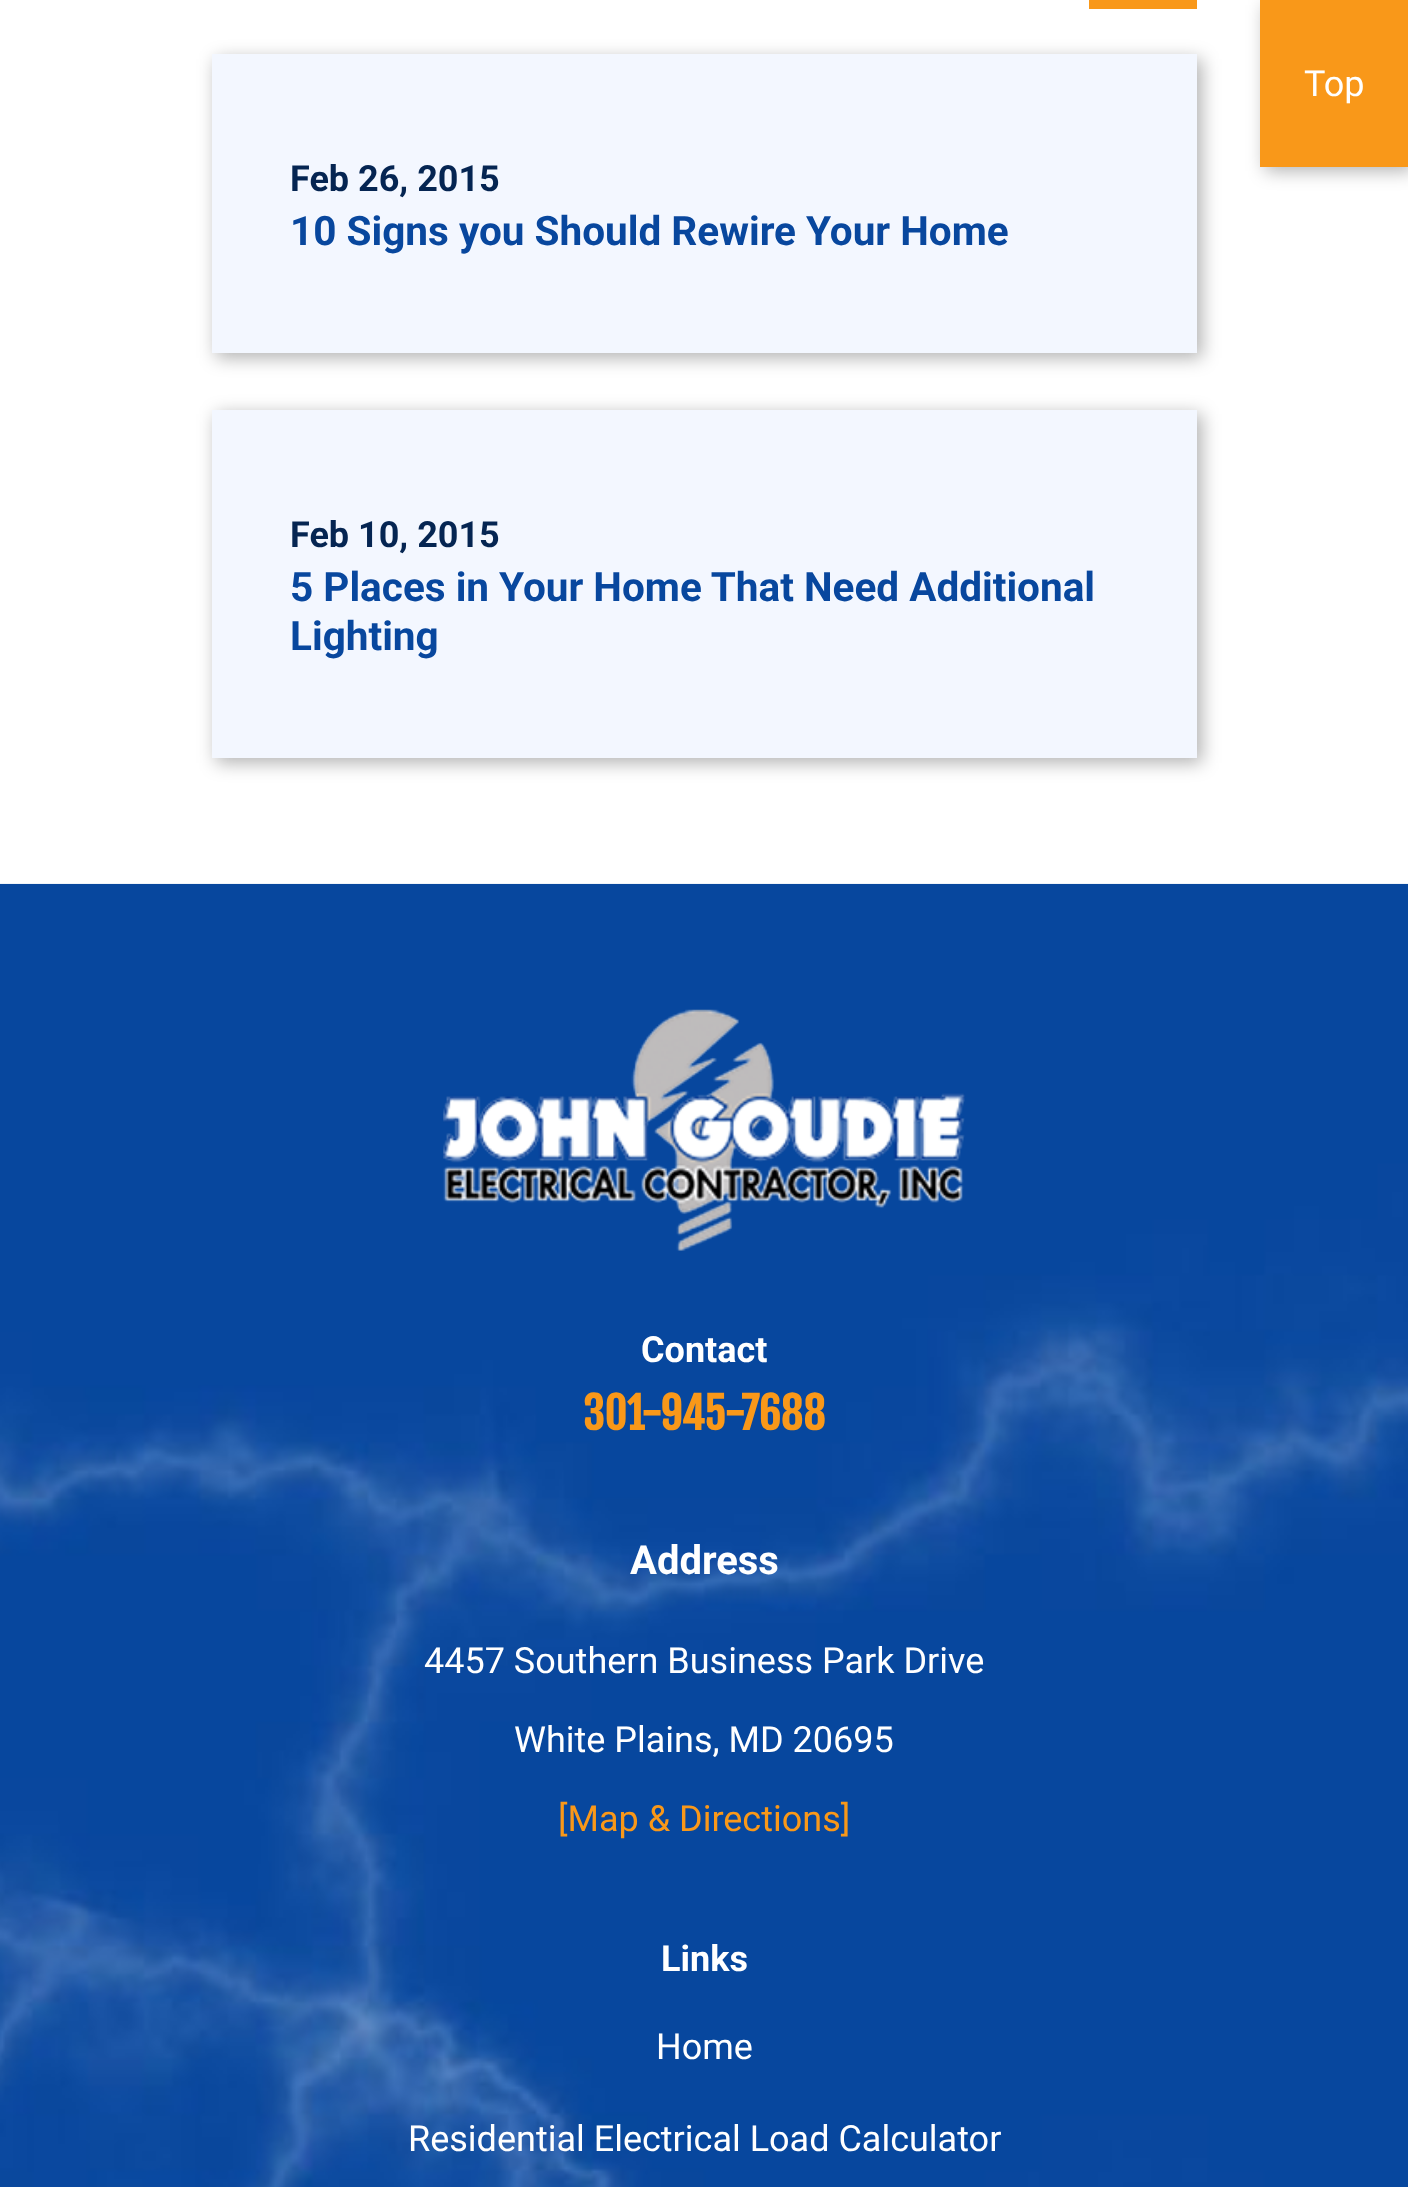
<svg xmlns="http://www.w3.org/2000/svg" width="1408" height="2187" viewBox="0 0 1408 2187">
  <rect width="100%" height="100%" fill="rgb(255,255,255)"/>
  <rect x="1265" y="5" width="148" height="166" fill="rgba(0,0,0,0.3)" filter="blur(9px)"/>
  <rect x="1260" y="0" width="148" height="167" fill="rgb(249,152,25)"/>
  <text x="1304" y="96" font-family="Roboto" font-size="36" fill="rgb(255,255,255)">Top</text>
  <rect x="1089" y="0" width="108" height="9" fill="rgb(249,152,25)"/>
  <rect x="216" y="59" width="986" height="299" fill="rgba(0,0,0,0.3)" filter="blur(9px)"/>
  <rect x="212" y="54" width="985" height="299" fill="rgb(243,247,255)"/>
  <text x="290" y="191" font-family="Roboto" font-size="36" font-weight="bold" fill="rgb(5,37,82)">Feb 26, 2015</text>
  <text x="290" y="245" font-family="Roboto" font-size="40.5" font-weight="bold" fill="rgb(8,71,158)">10 Signs you Should Rewire Your Home</text>
  <rect x="216" y="414" width="986" height="349" fill="rgba(0,0,0,0.3)" filter="blur(9px)"/>
  <rect x="212" y="410" width="985" height="348" fill="rgb(243,247,255)"/>
  <text x="290" y="547" font-family="Roboto" font-size="36" font-weight="bold" fill="rgb(5,37,82)">Feb 10, 2015</text>
  <g font-family="Roboto" font-size="40.5" font-weight="bold" fill="rgb(8,71,158)">
    <text>
      <tspan x="290" y="601">5 Places in Your Home That Need Additional</tspan>
      <tspan x="290" y="650">Lighting</tspan>
    </text>
  </g>
  <image x="0" y="883" width="1408" height="1304" href="pic1.png"/>
  <image x="443" y="1009" width="522" height="242" href="pic2.png"/>
  <text x="641" y="1362" font-family="Roboto" font-size="36" font-weight="bold" fill="rgb(255,255,255)">Contact</text>
  <text x="583" y="1430" font-family="Fjalla One" font-size="43.25" font-weight="bold" fill="rgb(249,152,25)">301-945-7688</text>
  <text x="630" y="1574" font-family="Roboto" font-size="40" font-weight="bold" fill="rgb(255,255,255)">Address</text>
  <g font-family="Roboto" font-size="36" fill="rgb(255,255,255)">
    <text x="424" y="1673">4457 Southern Business Park Drive</text>
    <text x="514" y="1752">White Plains, MD 20695</text>
  </g>
  <text x="558" y="1831" font-family="Roboto" font-size="36" fill="rgb(249,152,25)">[Map &amp; Directions]</text>
  <text x="661" y="1971" font-family="Roboto" font-size="36" font-weight="bold" fill="rgb(255,255,255)">Links</text>
  <g font-family="Roboto" font-size="36" fill="rgb(255,255,255)">
    <text x="656" y="2059">Home</text>
    <text x="408" y="2151">Residential Electrical Load Calculator</text>
  </g>
</svg>
